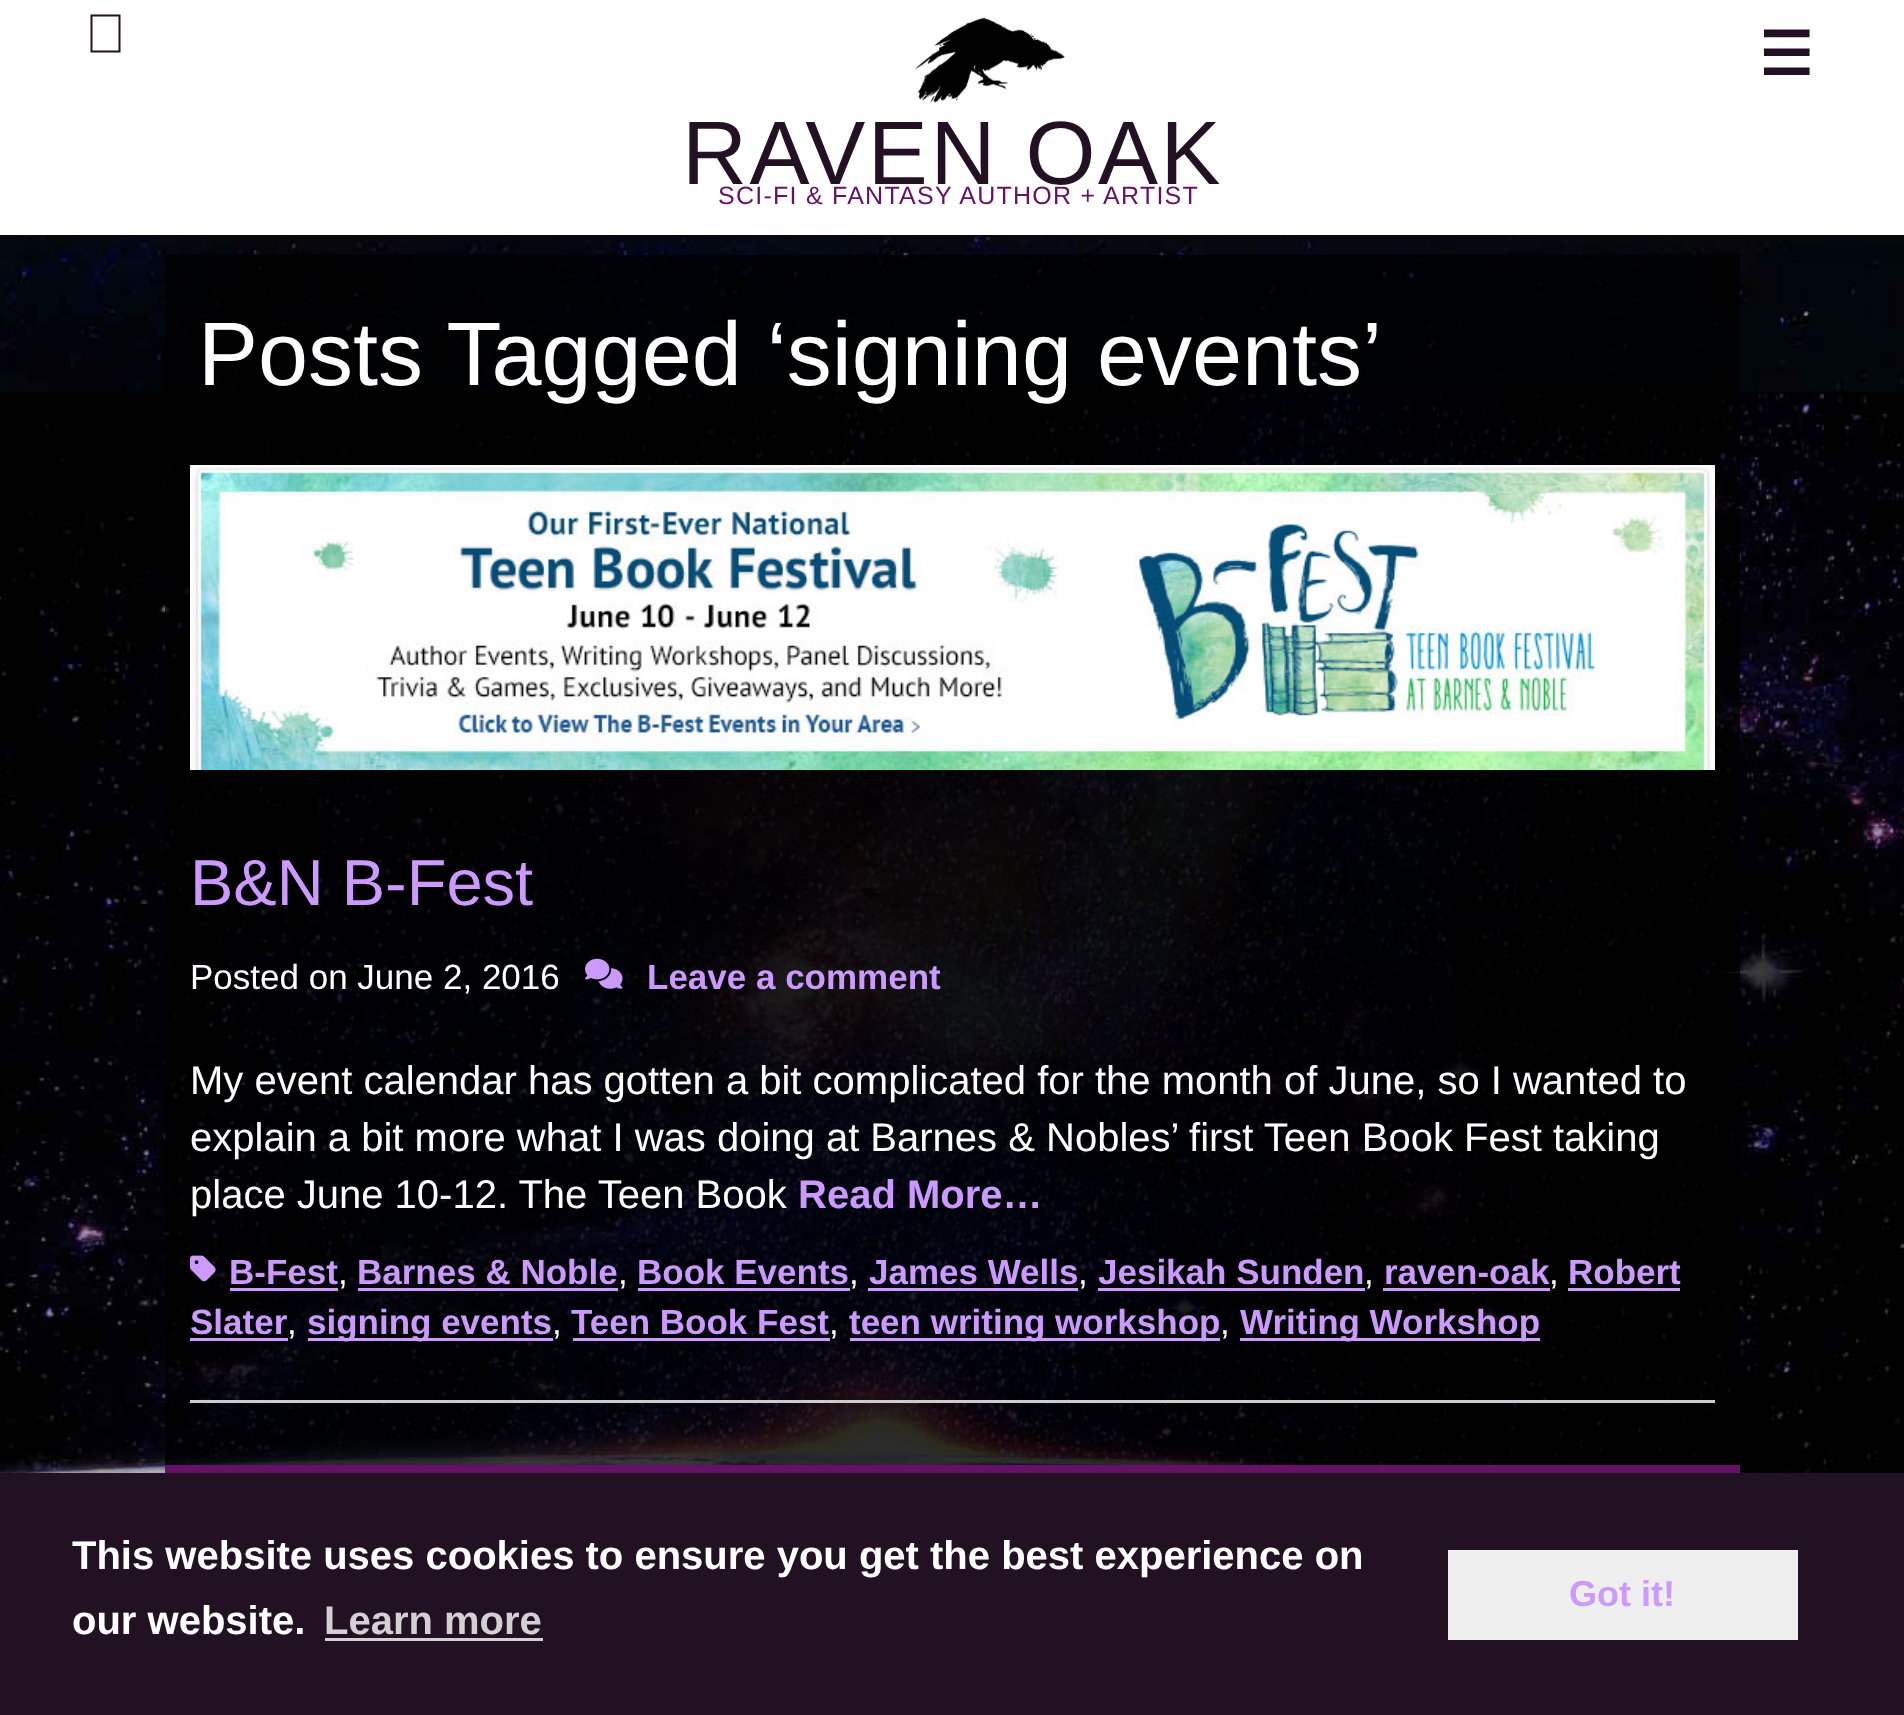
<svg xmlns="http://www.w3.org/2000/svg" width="1904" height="1715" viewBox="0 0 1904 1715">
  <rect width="100%" height="100%" fill="rgb(255,255,255)"/>
  <image x="0" y="235" width="1904" height="1238" href="pic1.png"/>
  <rect x="165" y="255" width="1575" height="1210" fill="rgba(0,0,0,0.76)"/>
  <rect x="-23" y="0" width="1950" height="240" fill="rgba(10,10,10,0.9)" filter="blur(7.5px)"/>
  <rect x="0" y="0" width="1904" height="235" fill="rgb(255,255,255)"/>
  <path d="M90.5 14.5H120.5V52.5H90.5ZM92.5 16.5V50.5H118.5V16.5Z" fill="rgb(34,17,34)"/>
  <text x="1759" y="75" font-family="DejaVu Sans" font-size="60" font-weight="bold" fill="rgb(34,17,34)">☰</text>
  <image x="915" y="17" width="150" height="86" href="pic2.png"/>
  <text x="682" y="184" font-family="Liberation Sans" font-size="90" letter-spacing="2.5" fill="rgb(34,17,34)">RAVEN OAK</text>
  <text x="718" y="204" font-family="Liberation Sans" font-size="25" letter-spacing="1.25" fill="rgb(102,17,102)">SCI-FI &amp; FANTASY AUTHOR + ARTIST</text>
  <text x="198" y="385" font-family="Liberation Sans" font-size="90" fill="rgb(255,255,255)">Posts Tagged ‘signing events’</text>
  <rect x="190" y="1400" width="1525" height="3" fill="rgb(204,204,204)"/>
  <image x="190" y="465" width="1525" height="305" href="pic3.png"/>
  <text x="190" y="905" font-family="Liberation Sans" font-size="65" fill="rgb(204,153,255)">B&amp;N B-Fest</text>
  <text x="190" y="989" font-family="Liberation Sans" font-size="35" fill="rgb(255,255,255)">Posted on June 2, 2016</text>
  <image x="585" y="958" width="38" height="31" href="pic4.png"/>
  <text x="647" y="989" font-family="Liberation Sans" font-size="35" font-weight="bold" fill="rgb(204,153,255)">Leave a comment</text>
  <g font-family="Liberation Sans" font-size="40" fill="rgb(255,255,255)">
    <text>
      <tspan x="190" y="1094">My event calendar has gotten a bit complicated for the month of June, so I wanted to</tspan>
      <tspan x="190" y="1151">explain a bit more what I was doing at Barnes &amp; Nobles’ first Teen Book Fest taking</tspan>
      <tspan x="190" y="1208">place June 10-12. The Teen Book</tspan>
    </text>
  </g>
  <text x="798" y="1208" font-family="Liberation Sans" font-size="40" font-weight="bold" fill="rgb(204,153,255)">Read More…</text>
  <image x="190" y="1255" width="26" height="27" href="pic5.png"/>
  <text x="229" y="1284" font-family="Liberation Sans" font-size="35" font-weight="bold" fill="rgb(204,153,255)">B-Fest</text>
  <rect x="230" y="1288" width="108" height="3" fill="rgb(204,153,255)"/>
  <text x="338" y="1284" font-family="Liberation Sans" font-size="35" fill="rgb(255,255,255)">,</text>
  <text x="357" y="1284" font-family="Liberation Sans" font-size="35" font-weight="bold" fill="rgb(204,153,255)">Barnes &amp; Noble</text>
  <rect x="358" y="1288" width="260" height="3" fill="rgb(204,153,255)"/>
  <text x="618" y="1284" font-family="Liberation Sans" font-size="35" fill="rgb(255,255,255)">,</text>
  <text x="637" y="1284" font-family="Liberation Sans" font-size="35" font-weight="bold" fill="rgb(204,153,255)">Book Events</text>
  <rect x="638" y="1288" width="212" height="3" fill="rgb(204,153,255)"/>
  <text x="849" y="1284" font-family="Liberation Sans" font-size="35" fill="rgb(255,255,255)">,</text>
  <text x="869" y="1284" font-family="Liberation Sans" font-size="35" font-weight="bold" fill="rgb(204,153,255)">James Wells</text>
  <rect x="868" y="1288" width="210" height="3" fill="rgb(204,153,255)"/>
  <text x="1078" y="1284" font-family="Liberation Sans" font-size="35" fill="rgb(255,255,255)">,</text>
  <text x="1098" y="1284" font-family="Liberation Sans" font-size="35" font-weight="bold" fill="rgb(204,153,255)">Jesikah Sunden</text>
  <rect x="1098" y="1288" width="267" height="3" fill="rgb(204,153,255)"/>
  <text x="1364" y="1284" font-family="Liberation Sans" font-size="35" fill="rgb(255,255,255)">,</text>
  <text x="1384" y="1284" font-family="Liberation Sans" font-size="35" font-weight="bold" fill="rgb(204,153,255)">raven-oak</text>
  <rect x="1383" y="1288" width="167" height="3" fill="rgb(204,153,255)"/>
  <text x="1549" y="1284" font-family="Liberation Sans" font-size="35" fill="rgb(255,255,255)">,</text>
  <text x="1568" y="1284" font-family="Liberation Sans" font-size="35" font-weight="bold" fill="rgb(204,153,255)">Robert</text>
  <rect x="1568" y="1288" width="112" height="3" fill="rgb(204,153,255)"/>
  <text x="190" y="1334" font-family="Liberation Sans" font-size="35" font-weight="bold" fill="rgb(204,153,255)">Slater</text>
  <rect x="190" y="1338" width="98" height="3" fill="rgb(204,153,255)"/>
  <text x="287" y="1334" font-family="Liberation Sans" font-size="35" fill="rgb(255,255,255)">,</text>
  <rect x="308" y="1338" width="245" height="3" fill="rgb(204,153,255)"/>
  <text x="307" y="1334" font-family="Liberation Sans" font-size="35" font-weight="bold" fill="rgb(204,153,255)">signing events</text>
  <text x="552" y="1334" font-family="Liberation Sans" font-size="35" fill="rgb(255,255,255)">,</text>
  <text x="571" y="1334" font-family="Liberation Sans" font-size="35" font-weight="bold" fill="rgb(204,153,255)">Teen Book Fest</text>
  <rect x="573" y="1338" width="257" height="3" fill="rgb(204,153,255)"/>
  <text x="829" y="1334" font-family="Liberation Sans" font-size="35" fill="rgb(255,255,255)">,</text>
  <rect x="850" y="1338" width="370" height="3" fill="rgb(204,153,255)"/>
  <text x="849" y="1334" font-family="Liberation Sans" font-size="35" font-weight="bold" fill="rgb(204,153,255)">teen writing workshop</text>
  <text x="1220" y="1334" font-family="Liberation Sans" font-size="35" fill="rgb(255,255,255)">,</text>
  <rect x="1240" y="1338" width="300" height="3" fill="rgb(204,153,255)"/>
  <text x="1240" y="1334" font-family="Liberation Sans" font-size="35" font-weight="bold" fill="rgb(204,153,255)">Writing Workshop</text>
  <rect x="165" y="1465" width="1575" height="8" fill="rgb(102,17,102)"/>
  <rect x="0" y="1473" width="1904" height="242" fill="rgb(34,17,34)"/>
  <g font-family="Liberation Sans" font-size="40" font-weight="bold" fill="rgb(255,255,255)">
    <text>
      <tspan x="72" y="1569">This website uses cookies to ensure you get the best experience on</tspan>
      <tspan x="72" y="1634">our website.</tspan>
    </text>
  </g>
  <text x="324" y="1634" font-family="Liberation Sans" font-size="40" font-weight="bold" fill="rgb(211,207,211)">Learn more</text>
  <rect x="325" y="1638" width="218" height="3" fill="rgb(211,207,211)"/>
  <rect x="1448" y="1550" width="350" height="90" fill="rgb(239,239,239)"/>
  <text x="1569" y="1606" font-family="Liberation Sans" font-size="36" font-weight="bold" fill="rgb(204,153,255)">Got it!</text>
</svg>
